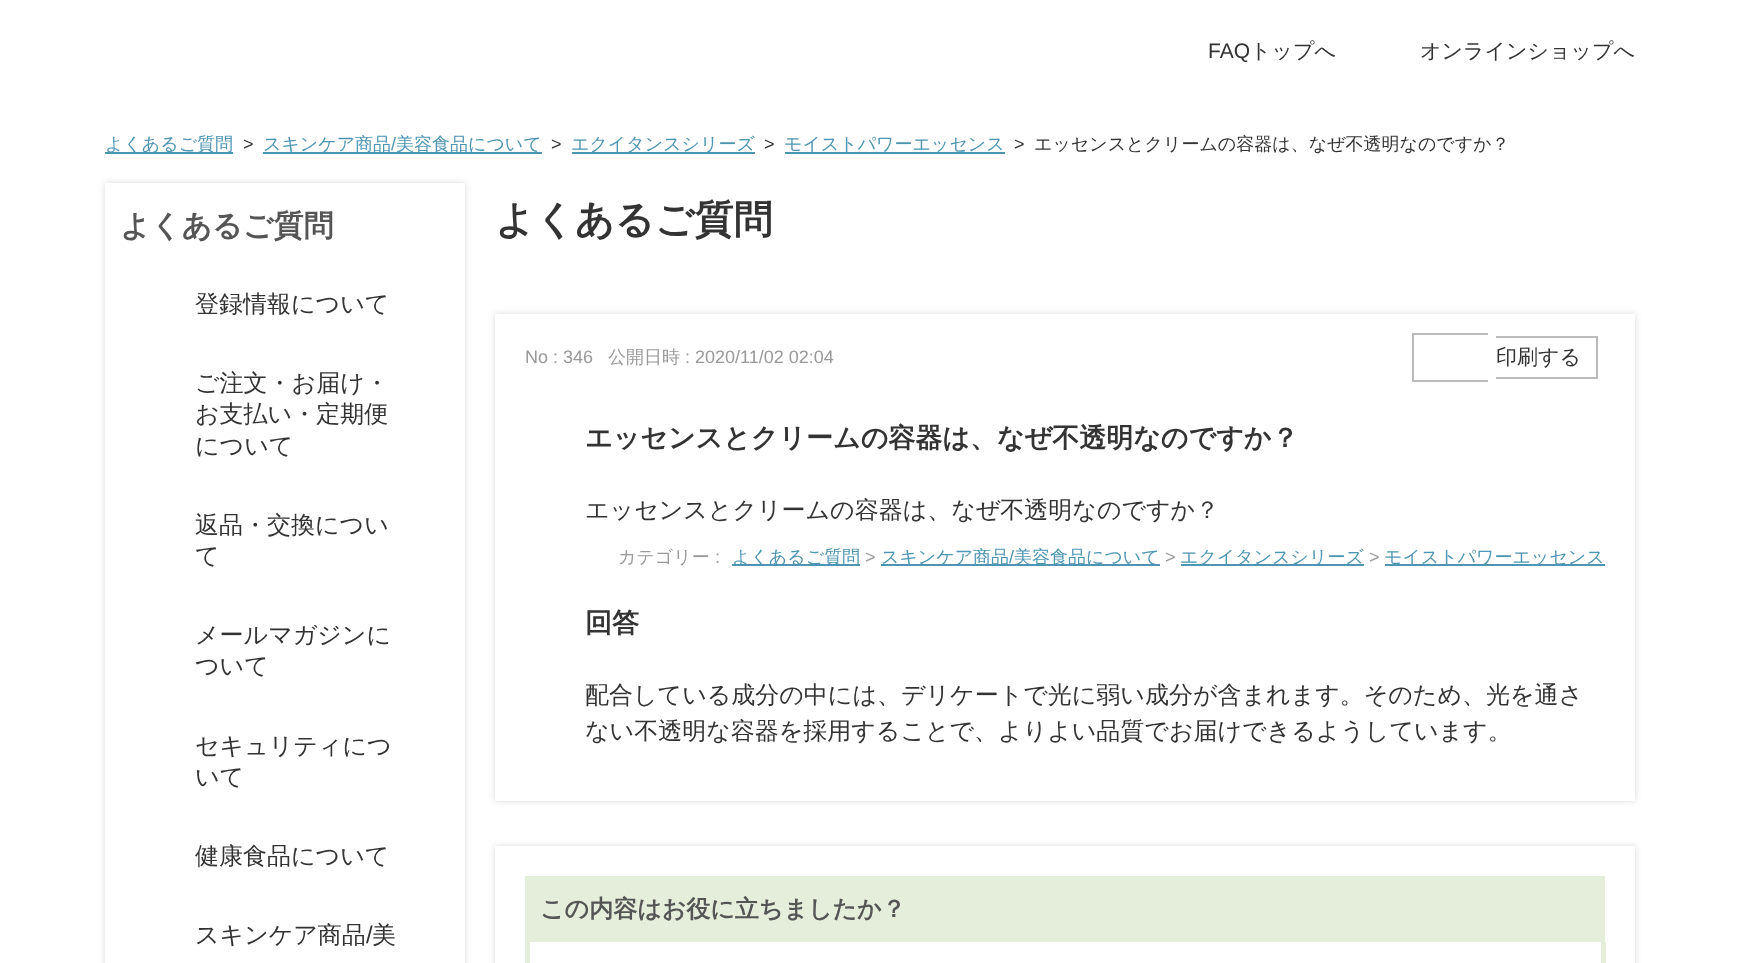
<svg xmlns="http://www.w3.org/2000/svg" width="1739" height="963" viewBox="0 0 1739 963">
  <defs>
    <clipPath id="clip1"><path d="M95 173H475V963H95ZM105 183H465V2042H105Z" clip-rule="evenodd"/></clipPath>
    <clipPath id="clip2"><path d="M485 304H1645V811H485ZM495 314H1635V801H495Z" clip-rule="evenodd"/></clipPath>
    <clipPath id="clip3"><path d="M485 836H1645V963H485ZM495 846H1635V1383H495Z" clip-rule="evenodd"/></clipPath>
  </defs>
  <rect width="100%" height="100%" fill="rgb(255,255,255)"/>
  <text x="1208" y="58" font-family="Liberation Sans" font-size="21" fill="rgb(51,51,51)">FAQ</text>
  <g font-family="WenQuanYi Zen Hei" font-size="21" font-weight="500" fill="rgb(51,51,51)">
    <text x="1250" y="58">トップへ</text>
    <text x="1420" y="58">オンラインショップへ</text>
  </g>
  <rect x="105" y="152" width="128" height="2" fill="rgb(77,149,178)"/>
  <text x="105" y="150" font-family="WenQuanYi Zen Hei" font-size="18" font-weight="500" fill="rgb(77,149,178)">よくあるご質問</text>
  <text x="243" y="150" font-family="Liberation Sans" font-size="18" fill="rgb(51,51,51)">&gt;</text>
  <rect x="263" y="152" width="279" height="2" fill="rgb(77,149,178)"/>
  <text x="263" y="150" font-family="WenQuanYi Zen Hei" font-size="18" font-weight="500" fill="rgb(77,149,178)">スキンケア商品</text>
  <text x="391" y="150" font-family="Liberation Sans" font-size="18" fill="rgb(77,149,178)">/</text>
  <text x="396" y="150" font-family="WenQuanYi Zen Hei" font-size="18" font-weight="500" fill="rgb(77,149,178)">美容食品について</text>
  <text x="551" y="150" font-family="Liberation Sans" font-size="18" fill="rgb(51,51,51)">&gt;</text>
  <rect x="572" y="152" width="183" height="2" fill="rgb(77,149,178)"/>
  <text x="571" y="150" font-family="WenQuanYi Zen Hei" font-size="18" font-weight="500" fill="rgb(77,149,178)">エクイタンスシリーズ</text>
  <text x="764" y="150" font-family="Liberation Sans" font-size="18" fill="rgb(51,51,51)">&gt;</text>
  <rect x="785" y="152" width="220" height="2" fill="rgb(77,149,178)"/>
  <text x="784" y="150" font-family="WenQuanYi Zen Hei" font-size="18" font-weight="500" fill="rgb(77,149,178)">モイストパワーエッセンス</text>
  <text x="1014" y="150" font-family="Liberation Sans" font-size="18" fill="rgb(51,51,51)">&gt;</text>
  <text x="1034" y="150" font-family="WenQuanYi Zen Hei" font-size="18" font-weight="500" fill="rgb(51,51,51)">エッセンスとクリームの容器は、なぜ不透明なのですか？</text>
  <g clip-path="url(#clip1)">
    <rect x="105" y="183" width="360" height="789" fill="rgba(7,0,2,0.15)" filter="blur(3px)"/>
  </g>
  <text x="120" y="236" font-family="WenQuanYi Zen Hei" font-size="30" font-weight="bold" fill="rgb(85,85,85)">よくあるご質問</text>
  <g font-family="WenQuanYi Zen Hei" font-size="24" font-weight="500" fill="rgb(51,51,51)">
    <text x="195" y="312">登録情報について</text>
    <text>
      <tspan x="195" y="391">ご注文・お届け・</tspan>
      <tspan x="195" y="422">お支払い・定期便</tspan>
      <tspan x="195" y="454">について</tspan>
    </text>
    <text>
      <tspan x="195" y="533">返品・交換につい</tspan>
      <tspan x="195" y="564">て</tspan>
    </text>
    <text>
      <tspan x="195" y="643">メールマガジンに</tspan>
      <tspan x="195" y="674">ついて</tspan>
    </text>
    <text>
      <tspan x="195" y="754">セキュリティにつ</tspan>
      <tspan x="195" y="785">いて</tspan>
    </text>
    <text x="195" y="864">健康食品について</text>
    <text x="195" y="943">スキンケア商品</text>
  </g>
  <text x="366" y="943" font-family="Liberation Sans" font-size="24" fill="rgb(51,51,51)">/</text>
  <text x="372" y="943" font-family="WenQuanYi Zen Hei" font-size="24" font-weight="500" fill="rgb(51,51,51)">美</text>
  <text x="495" y="233" font-family="WenQuanYi Zen Hei" font-size="39" font-weight="bold" fill="rgb(51,51,51)">よくあるご質問</text>
  <g clip-path="url(#clip2)">
    <rect x="495" y="314" width="1140" height="487" fill="rgba(7,0,2,0.15)" filter="blur(3px)"/>
  </g>
  <text x="525" y="363" font-family="Liberation Sans" font-size="18" fill="rgb(153,153,153)">No : 346</text>
  <text x="608" y="363" font-family="WenQuanYi Zen Hei" font-size="18" font-weight="500" fill="rgb(153,153,153)">公開日時</text>
  <text x="685" y="363" font-family="Liberation Sans" font-size="18" fill="rgb(153,153,153)">: 2020/11/02 02:04</text>
  <text x="1496" y="364" font-family="WenQuanYi Zen Hei" font-size="21" font-weight="500" fill="rgb(51,51,51)">印刷する</text>
  <rect x="1412" y="333" width="76" height="2" fill="rgb(187,187,187)"/>
  <rect x="1412" y="380" width="76" height="2" fill="rgb(187,187,187)"/>
  <rect x="1412" y="333" width="2" height="48" fill="rgb(187,187,187)"/>
  <rect x="1496" y="336" width="102" height="2" fill="rgb(187,187,187)"/>
  <rect x="1596" y="336" width="2" height="42" fill="rgb(187,187,187)"/>
  <rect x="1496" y="377" width="102" height="2" fill="rgb(187,187,187)"/>
  <text x="585" y="447" font-family="WenQuanYi Zen Hei" font-size="27" font-weight="bold" fill="rgb(51,51,51)">エッセンスとクリームの容器は、なぜ不透明なのですか？</text>
  <text x="585" y="518" font-family="WenQuanYi Zen Hei" font-size="24" font-weight="500" fill="rgb(51,51,51)">エッセンスとクリームの容器は、なぜ不透明なのですか？</text>
  <text x="618" y="563" font-family="WenQuanYi Zen Hei" font-size="18" font-weight="500" fill="rgb(153,153,153)">カテゴリー</text>
  <text x="715" y="563" font-family="Liberation Sans" font-size="18" fill="rgb(153,153,153)">:</text>
  <rect x="732" y="564" width="128" height="2" fill="rgb(77,149,178)"/>
  <text x="732" y="563" font-family="WenQuanYi Zen Hei" font-size="18" font-weight="500" fill="rgb(77,149,178)">よくあるご質問</text>
  <text x="865" y="563" font-family="Liberation Sans" font-size="18" fill="rgb(153,153,153)">&gt;</text>
  <rect x="881" y="564" width="279" height="2" fill="rgb(77,149,178)"/>
  <text x="881" y="563" font-family="WenQuanYi Zen Hei" font-size="18" font-weight="500" fill="rgb(77,149,178)">スキンケア商品</text>
  <text x="1009" y="563" font-family="Liberation Sans" font-size="18" fill="rgb(77,149,178)">/</text>
  <text x="1014" y="563" font-family="WenQuanYi Zen Hei" font-size="18" font-weight="500" fill="rgb(77,149,178)">美容食品について</text>
  <text x="1165" y="563" font-family="Liberation Sans" font-size="18" fill="rgb(153,153,153)">&gt;</text>
  <rect x="1181" y="564" width="183" height="2" fill="rgb(77,149,178)"/>
  <text x="1180" y="563" font-family="WenQuanYi Zen Hei" font-size="18" font-weight="500" fill="rgb(77,149,178)">エクイタンスシリーズ</text>
  <text x="1369" y="563" font-family="Liberation Sans" font-size="18" fill="rgb(153,153,153)">&gt;</text>
  <rect x="1385" y="564" width="220" height="2" fill="rgb(77,149,178)"/>
  <text x="1384" y="563" font-family="WenQuanYi Zen Hei" font-size="18" font-weight="500" fill="rgb(77,149,178)">モイストパワーエッセンス</text>
  <text x="585" y="632" font-family="WenQuanYi Zen Hei" font-size="27" font-weight="bold" fill="rgb(51,51,51)">回答</text>
  <g font-family="WenQuanYi Zen Hei" font-size="24" font-weight="500" fill="rgb(51,51,51)">
    <text>
      <tspan x="585" y="703">配合している成分の中には、デリケートで光に弱い成分が含まれます。そのため、光を通さ</tspan>
      <tspan x="585" y="739">ない不透明な容器を採用することで、よりよい品質でお届けできるようしています。</tspan>
    </text>
  </g>
  <g clip-path="url(#clip3)">
    <rect x="495" y="846" width="1140" height="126" fill="rgba(7,0,2,0.15)" filter="blur(3px)"/>
  </g>
  <rect x="525" y="876" width="1080" height="66" fill="rgb(228,238,218)"/>
  <text x="540" y="917" font-family="WenQuanYi Zen Hei" font-size="24" font-weight="bold" fill="rgb(85,85,85)">この内容はお役に立ちましたか？</text>
  <rect x="1601" y="942" width="5" height="21" fill="rgb(228,238,218)"/>
  <rect x="525" y="942" width="5" height="21" fill="rgb(228,238,218)"/>
</svg>
